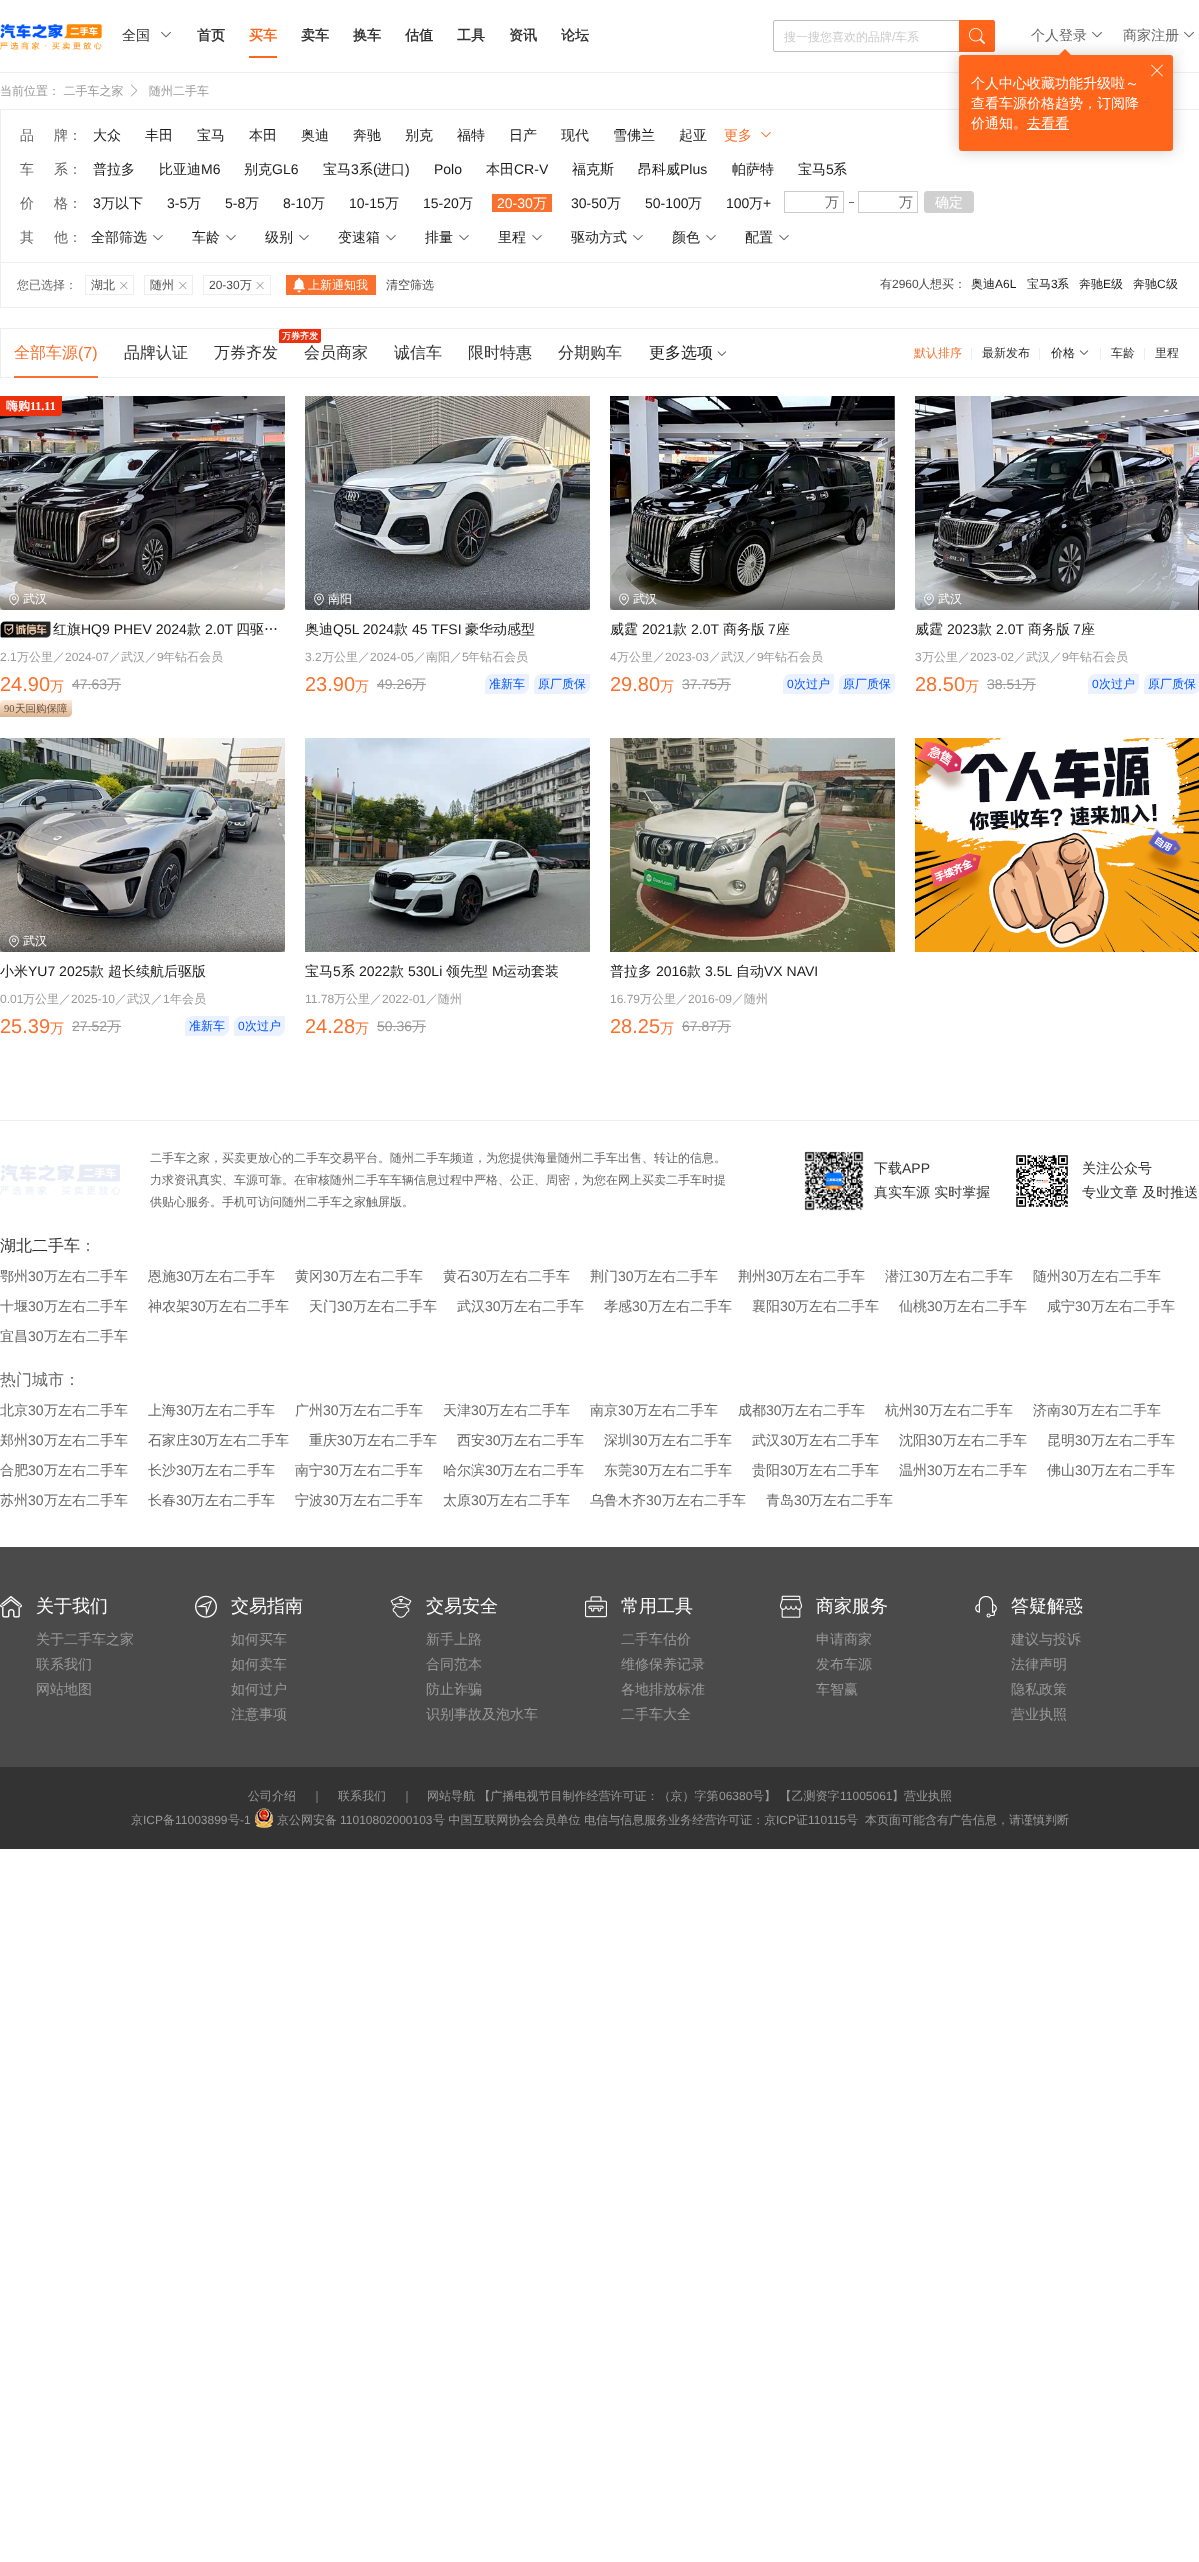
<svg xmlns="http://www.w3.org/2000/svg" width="1199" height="2562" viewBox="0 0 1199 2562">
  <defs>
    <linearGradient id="g1" gradientUnits="userSpaceOnUse" x1="36" y1="700" x2="36" y2="717"><stop offset="0" stop-color="rgb(255,236,221)"/><stop offset="1" stop-color="rgb(219,180,147)"/></linearGradient>
  </defs>
  <rect width="100%" height="100%" fill="rgb(255,255,255)"/>
  <text x="0" y="95" font-family="WenQuanYi Zen Hei" font-size="12" font-weight="500" fill="rgb(153,153,153)">当前位置： 二手车之家</text>
  <image x="130" y="84" width="8" height="13" href="pic1.png"/>
  <text x="149" y="95" font-family="WenQuanYi Zen Hei" font-size="12" font-weight="500" fill="rgb(153,153,153)">随州二手车</text>
  <rect x="0" y="72" width="1199" height="1" fill="rgb(236,238,240)"/>
  <image x="0" y="24" width="102" height="26" href="pic2.png"/>
  <text x="122" y="40" font-family="WenQuanYi Zen Hei" font-size="14" font-weight="500" fill="rgb(51,51,51)">全国</text>
  <image x="161" y="31" width="10" height="7" href="pic3.png"/>
  <text x="197" y="40" font-family="WenQuanYi Zen Hei" font-size="14" font-weight="bold" fill="rgb(51,51,51)">首页</text>
  <rect x="249" y="56" width="28" height="2" fill="rgb(255,101,27)"/>
  <text x="249" y="40" font-family="WenQuanYi Zen Hei" font-size="14" font-weight="bold" fill="rgb(255,101,27)">买车</text>
  <g font-family="WenQuanYi Zen Hei" font-size="14" font-weight="bold" fill="rgb(51,51,51)">
    <text x="301" y="40">卖车</text>
    <text x="353" y="40">换车</text>
    <text x="405" y="40">估值</text>
    <text x="457" y="40">工具</text>
    <text x="509" y="40">资讯</text>
    <text x="561" y="40">论坛</text>
  </g>
  <rect x="773.5" y="20.5" width="221" height="31" rx="1.5" fill="none" stroke="rgb(191,191,191)"/>
  <text x="784" y="41" font-family="WenQuanYi Zen Hei" font-size="12" font-weight="500" fill="rgb(204,204,204)">搜一搜您喜欢的品牌</text>
  <text x="892" y="41" font-family="Liberation Sans" font-size="12" fill="rgb(204,204,204)">/</text>
  <text x="895" y="41" font-family="WenQuanYi Zen Hei" font-size="12" font-weight="500" fill="rgb(204,204,204)">车系</text>
  <path d="M959 20H993C994 20 995 21 995 22V50C995 51 994 52 993 52H959Z" fill="rgb(255,101,27)"/>
  <image x="969" y="28" width="16" height="16" href="pic4.png"/>
  <text x="1031" y="40" font-family="WenQuanYi Zen Hei" font-size="14" font-weight="500" fill="rgb(102,102,102)">个人登录</text>
  <image x="1092" y="31" width="10" height="7" href="pic3.png"/>
  <rect x="0.5" y="109.5" width="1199" height="153" fill="none" stroke="rgb(238,238,238)"/>
  <rect x="959" y="55" width="214" height="96" rx="3" fill="rgba(0,0,0,0.2)" filter="blur(7.5px)"/>
  <rect x="959" y="55" width="214" height="96" rx="3" fill="rgb(255,101,27)"/>
  <path d="M1073 57H1057L1065 49Z" fill="rgb(255,101,27)"/>
  <image x="1151" y="64" width="12" height="13" href="pic5.png"/>
  <g font-family="WenQuanYi Zen Hei" font-size="14" font-weight="500" fill="rgb(255,255,255)">
    <text>
      <tspan x="971" y="88">个人中心收藏功能升级啦～</tspan>
      <tspan x="971" y="108">查看车源价格趋势，订阅降</tspan>
      <tspan x="971" y="128">价通知。</tspan>
    </text>
  </g>
  <rect x="1027" y="129" width="42" height="1" fill="rgb(255,255,255)"/>
  <text x="1027" y="128" font-family="WenQuanYi Zen Hei" font-size="14" font-weight="500" fill="rgb(255,255,255)">去看看</text>
  <text x="1123" y="40" font-family="WenQuanYi Zen Hei" font-size="14" font-weight="500" fill="rgb(102,102,102)">商家注册</text>
  <image x="1184" y="31" width="10" height="7" href="pic3.png"/>
  <g font-family="WenQuanYi Zen Hei" font-size="14" font-weight="500" fill="rgb(102,102,102)">
    <text x="20" y="140">品</text>
    <text x="54" y="140">牌：</text>
  </g>
  <g font-family="WenQuanYi Zen Hei" font-size="14" font-weight="500" fill="rgb(27,27,27)">
    <text x="93" y="140">大众</text>
    <text x="145" y="140">丰田</text>
    <text x="197" y="140">宝马</text>
    <text x="249" y="140">本田</text>
    <text x="301" y="140">奥迪</text>
    <text x="353" y="140">奔驰</text>
    <text x="405" y="140">别克</text>
    <text x="457" y="140">福特</text>
    <text x="509" y="140">日产</text>
    <text x="561" y="140">现代</text>
    <text x="613" y="140">雪佛兰</text>
    <text x="679" y="140">起亚</text>
  </g>
  <text x="724" y="140" font-family="WenQuanYi Zen Hei" font-size="14" font-weight="500" fill="rgb(249,113,44)">更多</text>
  <image x="761" y="132" width="10" height="6" href="pic6.png"/>
  <g font-family="WenQuanYi Zen Hei" font-size="14" font-weight="500" fill="rgb(102,102,102)">
    <text x="20" y="174">车</text>
    <text x="54" y="174">系：</text>
  </g>
  <g font-family="WenQuanYi Zen Hei" font-size="14" font-weight="500" fill="rgb(27,27,27)">
    <text x="93" y="174">普拉多</text>
    <text x="159" y="174">比亚迪</text>
  </g>
  <text x="201" y="174" font-family="Liberation Sans" font-size="14" fill="rgb(27,27,27)">M6</text>
  <text x="244" y="174" font-family="WenQuanYi Zen Hei" font-size="14" font-weight="500" fill="rgb(27,27,27)">别克</text>
  <text x="272" y="174" font-family="Liberation Sans" font-size="14" fill="rgb(27,27,27)">GL6</text>
  <text x="323" y="174" font-family="WenQuanYi Zen Hei" font-size="14" font-weight="500" fill="rgb(27,27,27)">宝马</text>
  <text x="351" y="174" font-family="Liberation Sans" font-size="14" fill="rgb(27,27,27)">3</text>
  <text x="359" y="174" font-family="WenQuanYi Zen Hei" font-size="14" font-weight="500" fill="rgb(27,27,27)">系</text>
  <text x="373" y="174" font-family="Liberation Sans" font-size="14" fill="rgb(27,27,27)">(</text>
  <text x="377" y="174" font-family="WenQuanYi Zen Hei" font-size="14" font-weight="500" fill="rgb(27,27,27)">进口</text>
  <g font-family="Liberation Sans" font-size="14" fill="rgb(27,27,27)">
    <text x="405" y="174">)</text>
    <text x="434" y="174">Polo</text>
  </g>
  <text x="486" y="174" font-family="WenQuanYi Zen Hei" font-size="14" font-weight="500" fill="rgb(27,27,27)">本田</text>
  <text x="514" y="174" font-family="Liberation Sans" font-size="14" fill="rgb(27,27,27)">CR-V</text>
  <g font-family="WenQuanYi Zen Hei" font-size="14" font-weight="500" fill="rgb(27,27,27)">
    <text x="572" y="174">福克斯</text>
    <text x="638" y="174">昂科威</text>
  </g>
  <text x="680" y="174" font-family="Liberation Sans" font-size="14" fill="rgb(27,27,27)">Plus</text>
  <g font-family="WenQuanYi Zen Hei" font-size="14" font-weight="500" fill="rgb(27,27,27)">
    <text x="732" y="174">帕萨特</text>
    <text x="798" y="174">宝马</text>
  </g>
  <text x="826" y="174" font-family="Liberation Sans" font-size="14" fill="rgb(27,27,27)">5</text>
  <text x="833" y="174" font-family="WenQuanYi Zen Hei" font-size="14" font-weight="500" fill="rgb(27,27,27)">系</text>
  <g font-family="WenQuanYi Zen Hei" font-size="14" font-weight="500" fill="rgb(102,102,102)">
    <text x="20" y="208">价</text>
    <text x="54" y="208">格：</text>
  </g>
  <text x="93" y="208" font-family="Liberation Sans" font-size="14" fill="rgb(27,27,27)">3</text>
  <text x="101" y="208" font-family="WenQuanYi Zen Hei" font-size="14" font-weight="500" fill="rgb(27,27,27)">万以下</text>
  <text x="167" y="208" font-family="Liberation Sans" font-size="14" fill="rgb(27,27,27)">3-5</text>
  <text x="187" y="208" font-family="WenQuanYi Zen Hei" font-size="14" font-weight="500" fill="rgb(27,27,27)">万</text>
  <text x="225" y="208" font-family="Liberation Sans" font-size="14" fill="rgb(27,27,27)">5-8</text>
  <text x="245" y="208" font-family="WenQuanYi Zen Hei" font-size="14" font-weight="500" fill="rgb(27,27,27)">万</text>
  <text x="283" y="208" font-family="Liberation Sans" font-size="14" fill="rgb(27,27,27)">8-10</text>
  <text x="311" y="208" font-family="WenQuanYi Zen Hei" font-size="14" font-weight="500" fill="rgb(27,27,27)">万</text>
  <text x="349" y="208" font-family="Liberation Sans" font-size="14" fill="rgb(27,27,27)">10-15</text>
  <text x="385" y="208" font-family="WenQuanYi Zen Hei" font-size="14" font-weight="500" fill="rgb(27,27,27)">万</text>
  <text x="423" y="208" font-family="Liberation Sans" font-size="14" fill="rgb(27,27,27)">15-20</text>
  <text x="459" y="208" font-family="WenQuanYi Zen Hei" font-size="14" font-weight="500" fill="rgb(27,27,27)">万</text>
  <rect x="492" y="194" width="60" height="18" fill="rgb(249,113,44)"/>
  <text x="497" y="208" font-family="Liberation Sans" font-size="14" fill="rgb(255,255,255)">20-30</text>
  <text x="533" y="208" font-family="WenQuanYi Zen Hei" font-size="14" font-weight="500" fill="rgb(255,255,255)">万</text>
  <text x="571" y="208" font-family="Liberation Sans" font-size="14" fill="rgb(27,27,27)">30-50</text>
  <text x="607" y="208" font-family="WenQuanYi Zen Hei" font-size="14" font-weight="500" fill="rgb(27,27,27)">万</text>
  <text x="645" y="208" font-family="Liberation Sans" font-size="14" fill="rgb(27,27,27)">50-100</text>
  <text x="688" y="208" font-family="WenQuanYi Zen Hei" font-size="14" font-weight="500" fill="rgb(27,27,27)">万</text>
  <text x="726" y="208" font-family="Liberation Sans" font-size="14" fill="rgb(27,27,27)">100</text>
  <text x="749" y="208" font-family="WenQuanYi Zen Hei" font-size="14" font-weight="500" fill="rgb(27,27,27)">万</text>
  <text x="763" y="208" font-family="Liberation Sans" font-size="14" fill="rgb(27,27,27)">+</text>
  <rect x="784.5" y="191.5" width="59" height="21" fill="none" stroke="rgb(204,204,204)"/>
  <text x="825" y="207" font-family="WenQuanYi Zen Hei" font-size="14" font-weight="500" fill="rgb(102,102,102)">万</text>
  <rect x="849" y="202" width="5" height="1" fill="rgb(102,102,102)"/>
  <rect x="858.5" y="191.5" width="59" height="21" fill="none" stroke="rgb(204,204,204)"/>
  <text x="899" y="207" font-family="WenQuanYi Zen Hei" font-size="14" font-weight="500" fill="rgb(102,102,102)">万</text>
  <rect x="924.5" y="191.5" width="49" height="21" rx="2.5" fill="rgb(208,208,208)" stroke="rgb(208,208,208)"/>
  <text x="935" y="207" font-family="WenQuanYi Zen Hei" font-size="14" font-weight="500" fill="rgb(255,255,255)">确定</text>
  <g font-family="WenQuanYi Zen Hei" font-size="14" font-weight="500" fill="rgb(102,102,102)">
    <text x="20" y="242">其</text>
    <text x="54" y="242">他：</text>
  </g>
  <text x="91" y="242" font-family="WenQuanYi Zen Hei" font-size="14" font-weight="500" fill="rgb(27,27,27)">全部筛选</text>
  <image x="153" y="235" width="10" height="6" href="pic7.png"/>
  <text x="192" y="242" font-family="WenQuanYi Zen Hei" font-size="14" font-weight="500" fill="rgb(27,27,27)">车龄</text>
  <image x="226" y="235" width="10" height="6" href="pic7.png"/>
  <text x="265" y="242" font-family="WenQuanYi Zen Hei" font-size="14" font-weight="500" fill="rgb(27,27,27)">级别</text>
  <image x="299" y="235" width="10" height="6" href="pic7.png"/>
  <text x="338" y="242" font-family="WenQuanYi Zen Hei" font-size="14" font-weight="500" fill="rgb(27,27,27)">变速箱</text>
  <image x="386" y="235" width="10" height="6" href="pic7.png"/>
  <text x="425" y="242" font-family="WenQuanYi Zen Hei" font-size="14" font-weight="500" fill="rgb(27,27,27)">排量</text>
  <image x="459" y="235" width="10" height="6" href="pic7.png"/>
  <text x="498" y="242" font-family="WenQuanYi Zen Hei" font-size="14" font-weight="500" fill="rgb(27,27,27)">里程</text>
  <image x="532" y="235" width="10" height="6" href="pic7.png"/>
  <text x="571" y="242" font-family="WenQuanYi Zen Hei" font-size="14" font-weight="500" fill="rgb(27,27,27)">驱动方式</text>
  <image x="633" y="235" width="10" height="6" href="pic7.png"/>
  <text x="672" y="242" font-family="WenQuanYi Zen Hei" font-size="14" font-weight="500" fill="rgb(27,27,27)">颜色</text>
  <image x="706" y="235" width="10" height="6" href="pic7.png"/>
  <text x="745" y="242" font-family="WenQuanYi Zen Hei" font-size="14" font-weight="500" fill="rgb(27,27,27)">配置</text>
  <image x="779" y="235" width="10" height="6" href="pic7.png"/>
  <rect x="0" y="307" width="1199" height="1" fill="rgb(238,238,238)"/>
  <rect x="0" y="263" width="1" height="45" fill="rgb(238,238,238)"/>
  <text x="17" y="289" font-family="WenQuanYi Zen Hei" font-size="12" font-weight="500" fill="rgb(102,102,102)">您已选择：</text>
  <rect x="85.5" y="275.5" width="48" height="19" fill="none" stroke="rgb(238,238,238)"/>
  <text x="91" y="289" font-family="WenQuanYi Zen Hei" font-size="12" font-weight="500" fill="rgb(74,74,74)">湖北</text>
  <image x="120" y="282" width="8" height="7" href="pic8.png"/>
  <rect x="144.5" y="275.5" width="48" height="19" fill="none" stroke="rgb(238,238,238)"/>
  <text x="150" y="289" font-family="WenQuanYi Zen Hei" font-size="12" font-weight="500" fill="rgb(74,74,74)">随州</text>
  <image x="179" y="282" width="8" height="7" href="pic8.png"/>
  <rect x="203.5" y="275.5" width="67" height="19" fill="none" stroke="rgb(238,238,238)"/>
  <text x="209" y="289" font-family="Liberation Sans" font-size="12" fill="rgb(74,74,74)">20-30</text>
  <text x="240" y="289" font-family="WenQuanYi Zen Hei" font-size="12" font-weight="500" fill="rgb(74,74,74)">万</text>
  <image x="256" y="282" width="8" height="7" href="pic9.png"/>
  <rect x="286" y="275" width="90" height="20" fill="rgb(249,113,44)"/>
  <image x="293" y="277" width="12" height="16" href="pic10.png"/>
  <text x="308" y="289" font-family="WenQuanYi Zen Hei" font-size="12" font-weight="500" fill="rgb(255,255,255)">上新通知我</text>
  <g font-family="WenQuanYi Zen Hei" font-size="12" font-weight="500" fill="rgb(74,74,74)">
    <text x="386" y="289">清空筛选</text>
    <text x="880" y="288">有</text>
  </g>
  <text x="892" y="288" font-family="Liberation Sans" font-size="12" fill="rgb(74,74,74)">2960</text>
  <text x="918" y="288" font-family="WenQuanYi Zen Hei" font-size="12" font-weight="500" fill="rgb(74,74,74)">人想买：</text>
  <text x="971" y="288" font-family="WenQuanYi Zen Hei" font-size="12" font-weight="500" fill="rgb(27,27,27)">奥迪</text>
  <text x="995" y="288" font-family="Liberation Sans" font-size="12" fill="rgb(27,27,27)">A6L</text>
  <text x="1027" y="288" font-family="WenQuanYi Zen Hei" font-size="12" font-weight="500" fill="rgb(27,27,27)">宝马</text>
  <text x="1051" y="288" font-family="Liberation Sans" font-size="12" fill="rgb(27,27,27)">3</text>
  <g font-family="WenQuanYi Zen Hei" font-size="12" font-weight="500" fill="rgb(27,27,27)">
    <text x="1057" y="288">系</text>
    <text x="1079" y="288">奔驰</text>
  </g>
  <text x="1103" y="288" font-family="Liberation Sans" font-size="12" fill="rgb(27,27,27)">E</text>
  <g font-family="WenQuanYi Zen Hei" font-size="12" font-weight="500" fill="rgb(27,27,27)">
    <text x="1111" y="288">级</text>
    <text x="1133" y="288">奔驰</text>
  </g>
  <text x="1157" y="288" font-family="Liberation Sans" font-size="12" fill="rgb(27,27,27)">C</text>
  <text x="1166" y="288" font-family="WenQuanYi Zen Hei" font-size="12" font-weight="500" fill="rgb(27,27,27)">级</text>
  <rect x="0.5" y="328.5" width="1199" height="49" fill="none" stroke="rgb(238,238,238)"/>
  <rect x="14" y="376" width="84" height="2" fill="rgb(249,113,44)"/>
  <text x="14" y="358" font-family="WenQuanYi Zen Hei" font-size="16" font-weight="500" fill="rgb(249,113,44)">全部车源</text>
  <text x="78" y="358" font-family="Liberation Sans" font-size="16" fill="rgb(249,113,44)">(7)</text>
  <text x="124" y="358" font-family="WenQuanYi Zen Hei" font-size="16" font-weight="500" fill="rgb(51,51,51)">品牌认证</text>
  <path d="M281 329H321V341C321 342 320 343 319 343H279V331C279 330 280 329 281 329Z" fill="rgb(237,48,14)"/>
  <text x="282" y="339" font-family="WenQuanYi Zen Hei" font-size="9" font-weight="bold" fill="rgb(255,255,255)">万券齐发</text>
  <g font-family="WenQuanYi Zen Hei" font-size="16" font-weight="500" fill="rgb(51,51,51)">
    <text x="214" y="358">万券齐发</text>
    <text x="304" y="358">会员商家</text>
    <text x="394" y="358">诚信车</text>
    <text x="468" y="358">限时特惠</text>
    <text x="558" y="358">分期购车</text>
  </g>
  <text x="649" y="358" font-family="WenQuanYi Zen Hei" font-size="16" font-weight="500" fill="rgb(27,27,27)">更多选项</text>
  <image x="717" y="351" width="9" height="5" href="pic11.png"/>
  <text x="914" y="357" font-family="WenQuanYi Zen Hei" font-size="12" font-weight="500" fill="rgb(249,113,44)">默认排序</text>
  <rect x="971" y="348" width="1" height="12" fill="rgb(238,238,238)"/>
  <text x="982" y="357" font-family="WenQuanYi Zen Hei" font-size="12" font-weight="500" fill="rgb(51,51,51)">最新发布</text>
  <rect x="1039" y="348" width="1" height="12" fill="rgb(238,238,238)"/>
  <text x="1051" y="357" font-family="WenQuanYi Zen Hei" font-size="12" font-weight="500" fill="rgb(27,27,27)">价格</text>
  <image x="1079" y="350" width="10" height="5" href="pic12.png"/>
  <rect x="1100" y="348" width="1" height="12" fill="rgb(238,238,238)"/>
  <text x="1111" y="357" font-family="WenQuanYi Zen Hei" font-size="12" font-weight="500" fill="rgb(51,51,51)">车龄</text>
  <rect x="1144" y="348" width="1" height="12" fill="rgb(238,238,238)"/>
  <text x="1155" y="357" font-family="WenQuanYi Zen Hei" font-size="12" font-weight="500" fill="rgb(51,51,51)">里程</text>
  <image x="0" y="396" width="285" height="214" href="pic13.png"/>
  <path d="M0 396H62V413C62 414.5 60.5 416 59 416H0Z" fill="rgb(237,48,14)"/>
  <text x="6" y="410" font-family="WenQuanYi Zen Hei" font-size="12" font-weight="bold" fill="rgb(255,255,255)">嗨购</text>
  <text x="30" y="410" font-family="Liberation Serif" font-size="12" font-weight="bold" fill="rgb(255,255,255)">11.11</text>
  <image x="9" y="593" width="10" height="13" href="pic14.png"/>
  <text x="23" y="603" font-family="WenQuanYi Zen Hei" font-size="12" font-weight="500" fill="rgb(255,255,255)">武汉</text>
  <image x="0" y="621" width="51" height="17" href="pic15.png"/>
  <text x="53" y="634" font-family="WenQuanYi Zen Hei" font-size="14" font-weight="500" fill="rgb(27,27,27)">红旗</text>
  <text x="81" y="634" font-family="Liberation Sans" font-size="14" fill="rgb(27,27,27)">HQ9 PHEV 2024</text>
  <text x="187" y="634" font-family="WenQuanYi Zen Hei" font-size="14" font-weight="500" fill="rgb(27,27,27)">款</text>
  <text x="205" y="634" font-family="Liberation Sans" font-size="14" fill="rgb(27,27,27)">2.0T</text>
  <text x="236" y="634" font-family="WenQuanYi Zen Hei" font-size="14" font-weight="500" fill="rgb(27,27,27)">四驱…</text>
  <text x="0" y="661" font-family="Liberation Sans" font-size="12" fill="rgb(153,153,153)">2.1</text>
  <text x="17" y="661" font-family="WenQuanYi Zen Hei" font-size="12" font-weight="500" fill="rgb(153,153,153)">万公里／</text>
  <text x="65" y="661" font-family="Liberation Sans" font-size="12" fill="rgb(153,153,153)">2024-07</text>
  <text x="109" y="661" font-family="WenQuanYi Zen Hei" font-size="12" font-weight="500" fill="rgb(153,153,153)">／武汉／</text>
  <text x="157" y="661" font-family="Liberation Sans" font-size="12" fill="rgb(153,153,153)">9</text>
  <text x="163" y="661" font-family="WenQuanYi Zen Hei" font-size="12" font-weight="500" fill="rgb(153,153,153)">年钻石会员</text>
  <text x="0" y="691" font-family="Liberation Sans" font-size="20" fill="rgb(249,113,44)">24.90</text>
  <text x="50" y="691" font-family="WenQuanYi Zen Hei" font-size="14" font-weight="500" fill="rgb(249,113,44)">万</text>
  <text x="72" y="689" font-family="Liberation Sans" font-size="14" fill="rgb(153,153,153)">47.63</text>
  <rect x="72" y="684" width="49" height="1" fill="rgb(153,153,153)"/>
  <text x="107" y="689" font-family="WenQuanYi Zen Hei" font-size="14" font-weight="500" fill="rgb(153,153,153)">万</text>
  <path d="M4 700H72V713C72 715 70 717 68 717H0V704C0 702 2 700 4 700Z" fill="url(#g1)"/>
  <text x="4" y="712" font-family="Liberation Serif" font-size="10.5" fill="rgb(112,81,54)">90</text>
  <text x="15" y="712" font-family="WenQuanYi Zen Hei" font-size="10.5" font-weight="500" fill="rgb(112,81,54)">天回购保障</text>
  <image x="305" y="396" width="285" height="214" href="pic16.png"/>
  <image x="314" y="593" width="10" height="13" href="pic17.png"/>
  <text x="328" y="603" font-family="WenQuanYi Zen Hei" font-size="12" font-weight="500" fill="rgb(255,255,255)">南阳</text>
  <text x="305" y="634" font-family="WenQuanYi Zen Hei" font-size="14" font-weight="500" fill="rgb(27,27,27)">奥迪</text>
  <text x="333" y="634" font-family="Liberation Sans" font-size="14" fill="rgb(27,27,27)">Q5L 2024</text>
  <text x="394" y="634" font-family="WenQuanYi Zen Hei" font-size="14" font-weight="500" fill="rgb(27,27,27)">款</text>
  <text x="412" y="634" font-family="Liberation Sans" font-size="14" fill="rgb(27,27,27)">45 TFSI</text>
  <text x="465" y="634" font-family="WenQuanYi Zen Hei" font-size="14" font-weight="500" fill="rgb(27,27,27)">豪华动感型</text>
  <text x="305" y="661" font-family="Liberation Sans" font-size="12" fill="rgb(153,153,153)">3.2</text>
  <text x="322" y="661" font-family="WenQuanYi Zen Hei" font-size="12" font-weight="500" fill="rgb(153,153,153)">万公里／</text>
  <text x="370" y="661" font-family="Liberation Sans" font-size="12" fill="rgb(153,153,153)">2024-05</text>
  <text x="414" y="661" font-family="WenQuanYi Zen Hei" font-size="12" font-weight="500" fill="rgb(153,153,153)">／南阳／</text>
  <text x="462" y="661" font-family="Liberation Sans" font-size="12" fill="rgb(153,153,153)">5</text>
  <text x="468" y="661" font-family="WenQuanYi Zen Hei" font-size="12" font-weight="500" fill="rgb(153,153,153)">年钻石会员</text>
  <text x="305" y="691" font-family="Liberation Sans" font-size="20" fill="rgb(249,113,44)">23.90</text>
  <text x="355" y="691" font-family="WenQuanYi Zen Hei" font-size="14" font-weight="500" fill="rgb(249,113,44)">万</text>
  <text x="377" y="689" font-family="Liberation Sans" font-size="14" fill="rgb(153,153,153)">49.26</text>
  <rect x="377" y="684" width="49" height="1" fill="rgb(153,153,153)"/>
  <text x="412" y="689" font-family="WenQuanYi Zen Hei" font-size="14" font-weight="500" fill="rgb(153,153,153)">万</text>
  <path d="M493 674H529V686C529 690.5 525.5 694 521 694H485V682C485 677.5 488.5 674 493 674Z" fill="rgb(235,241,255)"/>
  <text x="489" y="688" font-family="WenQuanYi Zen Hei" font-size="12" font-weight="500" fill="rgb(0,85,255)">准新车</text>
  <path d="M542 674H590V686C590 690.5 586.5 694 582 694H534V682C534 677.5 537.5 674 542 674Z" fill="rgb(235,241,255)"/>
  <text x="538" y="688" font-family="WenQuanYi Zen Hei" font-size="12" font-weight="500" fill="rgb(0,85,255)">原厂质保</text>
  <image x="610" y="396" width="285" height="214" href="pic18.png"/>
  <image x="619" y="593" width="10" height="13" href="pic19.png"/>
  <text x="633" y="603" font-family="WenQuanYi Zen Hei" font-size="12" font-weight="500" fill="rgb(255,255,255)">武汉</text>
  <text x="610" y="634" font-family="WenQuanYi Zen Hei" font-size="14" font-weight="500" fill="rgb(27,27,27)">威霆</text>
  <text x="642" y="634" font-family="Liberation Sans" font-size="14" fill="rgb(27,27,27)">2021</text>
  <text x="673" y="634" font-family="WenQuanYi Zen Hei" font-size="14" font-weight="500" fill="rgb(27,27,27)">款</text>
  <text x="691" y="634" font-family="Liberation Sans" font-size="14" fill="rgb(27,27,27)">2.0T</text>
  <text x="723" y="634" font-family="WenQuanYi Zen Hei" font-size="14" font-weight="500" fill="rgb(27,27,27)">商务版</text>
  <text x="768" y="634" font-family="Liberation Sans" font-size="14" fill="rgb(27,27,27)">7</text>
  <text x="776" y="634" font-family="WenQuanYi Zen Hei" font-size="14" font-weight="500" fill="rgb(27,27,27)">座</text>
  <text x="610" y="661" font-family="Liberation Sans" font-size="12" fill="rgb(153,153,153)">4</text>
  <text x="617" y="661" font-family="WenQuanYi Zen Hei" font-size="12" font-weight="500" fill="rgb(153,153,153)">万公里／</text>
  <text x="665" y="661" font-family="Liberation Sans" font-size="12" fill="rgb(153,153,153)">2023-03</text>
  <text x="709" y="661" font-family="WenQuanYi Zen Hei" font-size="12" font-weight="500" fill="rgb(153,153,153)">／武汉／</text>
  <text x="757" y="661" font-family="Liberation Sans" font-size="12" fill="rgb(153,153,153)">9</text>
  <text x="763" y="661" font-family="WenQuanYi Zen Hei" font-size="12" font-weight="500" fill="rgb(153,153,153)">年钻石会员</text>
  <text x="610" y="691" font-family="Liberation Sans" font-size="20" fill="rgb(249,113,44)">29.80</text>
  <text x="660" y="691" font-family="WenQuanYi Zen Hei" font-size="14" font-weight="500" fill="rgb(249,113,44)">万</text>
  <text x="682" y="689" font-family="Liberation Sans" font-size="14" fill="rgb(153,153,153)">37.75</text>
  <rect x="682" y="684" width="49" height="1" fill="rgb(153,153,153)"/>
  <text x="717" y="689" font-family="WenQuanYi Zen Hei" font-size="14" font-weight="500" fill="rgb(153,153,153)">万</text>
  <path d="M791 674H834V686C834 690.5 830.5 694 826 694H783V682C783 677.5 786.5 674 791 674Z" fill="rgb(235,241,255)"/>
  <text x="787" y="688" font-family="Liberation Sans" font-size="12" fill="rgb(0,85,255)">0</text>
  <text x="794" y="688" font-family="WenQuanYi Zen Hei" font-size="12" font-weight="500" fill="rgb(0,85,255)">次过户</text>
  <path d="M847 674H895V686C895 690.5 891.5 694 887 694H839V682C839 677.5 842.5 674 847 674Z" fill="rgb(235,241,255)"/>
  <text x="843" y="688" font-family="WenQuanYi Zen Hei" font-size="12" font-weight="500" fill="rgb(0,85,255)">原厂质保</text>
  <image x="915" y="396" width="284" height="214" href="pic20.png"/>
  <image x="924" y="593" width="10" height="13" href="pic21.png"/>
  <text x="938" y="603" font-family="WenQuanYi Zen Hei" font-size="12" font-weight="500" fill="rgb(255,255,255)">武汉</text>
  <text x="915" y="634" font-family="WenQuanYi Zen Hei" font-size="14" font-weight="500" fill="rgb(27,27,27)">威霆</text>
  <text x="947" y="634" font-family="Liberation Sans" font-size="14" fill="rgb(27,27,27)">2023</text>
  <text x="978" y="634" font-family="WenQuanYi Zen Hei" font-size="14" font-weight="500" fill="rgb(27,27,27)">款</text>
  <text x="996" y="634" font-family="Liberation Sans" font-size="14" fill="rgb(27,27,27)">2.0T</text>
  <text x="1028" y="634" font-family="WenQuanYi Zen Hei" font-size="14" font-weight="500" fill="rgb(27,27,27)">商务版</text>
  <text x="1073" y="634" font-family="Liberation Sans" font-size="14" fill="rgb(27,27,27)">7</text>
  <text x="1081" y="634" font-family="WenQuanYi Zen Hei" font-size="14" font-weight="500" fill="rgb(27,27,27)">座</text>
  <text x="915" y="661" font-family="Liberation Sans" font-size="12" fill="rgb(153,153,153)">3</text>
  <text x="922" y="661" font-family="WenQuanYi Zen Hei" font-size="12" font-weight="500" fill="rgb(153,153,153)">万公里／</text>
  <text x="970" y="661" font-family="Liberation Sans" font-size="12" fill="rgb(153,153,153)">2023-02</text>
  <text x="1014" y="661" font-family="WenQuanYi Zen Hei" font-size="12" font-weight="500" fill="rgb(153,153,153)">／武汉／</text>
  <text x="1062" y="661" font-family="Liberation Sans" font-size="12" fill="rgb(153,153,153)">9</text>
  <text x="1068" y="661" font-family="WenQuanYi Zen Hei" font-size="12" font-weight="500" fill="rgb(153,153,153)">年钻石会员</text>
  <text x="915" y="691" font-family="Liberation Sans" font-size="20" fill="rgb(249,113,44)">28.50</text>
  <text x="965" y="691" font-family="WenQuanYi Zen Hei" font-size="14" font-weight="500" fill="rgb(249,113,44)">万</text>
  <text x="987" y="689" font-family="Liberation Sans" font-size="14" fill="rgb(153,153,153)">38.51</text>
  <rect x="987" y="684" width="49" height="1" fill="rgb(153,153,153)"/>
  <text x="1022" y="689" font-family="WenQuanYi Zen Hei" font-size="14" font-weight="500" fill="rgb(153,153,153)">万</text>
  <path d="M1096 674H1139V686C1139 690.5 1135.5 694 1131 694H1088V682C1088 677.5 1091.5 674 1096 674Z" fill="rgb(235,241,255)"/>
  <text x="1092" y="688" font-family="Liberation Sans" font-size="12" fill="rgb(0,85,255)">0</text>
  <text x="1099" y="688" font-family="WenQuanYi Zen Hei" font-size="12" font-weight="500" fill="rgb(0,85,255)">次过户</text>
  <path d="M1152 674H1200V686C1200 690.5 1196.5 694 1192 694H1144V682C1144 677.5 1147.5 674 1152 674Z" fill="rgb(235,241,255)"/>
  <text x="1148" y="688" font-family="WenQuanYi Zen Hei" font-size="12" font-weight="500" fill="rgb(0,85,255)">原厂质保</text>
  <image x="915" y="738" width="284" height="214" href="pic22.png"/>
  <image x="0" y="738" width="285" height="214" href="pic23.png"/>
  <image x="9" y="935" width="10" height="13" href="pic24.png"/>
  <text x="23" y="945" font-family="WenQuanYi Zen Hei" font-size="12" font-weight="500" fill="rgb(255,255,255)">武汉</text>
  <text x="0" y="976" font-family="WenQuanYi Zen Hei" font-size="14" font-weight="500" fill="rgb(27,27,27)">小米</text>
  <text x="28" y="976" font-family="Liberation Sans" font-size="14" fill="rgb(27,27,27)">YU7 2025</text>
  <g font-family="WenQuanYi Zen Hei" font-size="14" font-weight="500" fill="rgb(27,27,27)">
    <text x="90" y="976">款</text>
    <text x="108" y="976">超长续航后驱版</text>
  </g>
  <text x="0" y="1003" font-family="Liberation Sans" font-size="12" fill="rgb(153,153,153)">0.01</text>
  <text x="23" y="1003" font-family="WenQuanYi Zen Hei" font-size="12" font-weight="500" fill="rgb(153,153,153)">万公里／</text>
  <text x="71" y="1003" font-family="Liberation Sans" font-size="12" fill="rgb(153,153,153)">2025-10</text>
  <text x="115" y="1003" font-family="WenQuanYi Zen Hei" font-size="12" font-weight="500" fill="rgb(153,153,153)">／武汉／</text>
  <text x="163" y="1003" font-family="Liberation Sans" font-size="12" fill="rgb(153,153,153)">1</text>
  <text x="170" y="1003" font-family="WenQuanYi Zen Hei" font-size="12" font-weight="500" fill="rgb(153,153,153)">年会员</text>
  <text x="0" y="1033" font-family="Liberation Sans" font-size="20" fill="rgb(249,113,44)">25.39</text>
  <text x="50" y="1033" font-family="WenQuanYi Zen Hei" font-size="14" font-weight="500" fill="rgb(249,113,44)">万</text>
  <text x="72" y="1031" font-family="Liberation Sans" font-size="14" fill="rgb(153,153,153)">27.52</text>
  <rect x="72" y="1026" width="49" height="1" fill="rgb(153,153,153)"/>
  <text x="107" y="1031" font-family="WenQuanYi Zen Hei" font-size="14" font-weight="500" fill="rgb(153,153,153)">万</text>
  <path d="M193 1016H229V1028C229 1032.5 225.5 1036 221 1036H185V1024C185 1019.5 188.5 1016 193 1016Z" fill="rgb(235,241,255)"/>
  <text x="189" y="1030" font-family="WenQuanYi Zen Hei" font-size="12" font-weight="500" fill="rgb(0,85,255)">准新车</text>
  <path d="M242 1016H285V1028C285 1032.5 281.5 1036 277 1036H234V1024C234 1019.5 237.5 1016 242 1016Z" fill="rgb(235,241,255)"/>
  <text x="238" y="1030" font-family="Liberation Sans" font-size="12" fill="rgb(0,85,255)">0</text>
  <text x="245" y="1030" font-family="WenQuanYi Zen Hei" font-size="12" font-weight="500" fill="rgb(0,85,255)">次过户</text>
  <image x="305" y="738" width="285" height="214" href="pic25.png"/>
  <text x="305" y="976" font-family="WenQuanYi Zen Hei" font-size="14" font-weight="500" fill="rgb(27,27,27)">宝马</text>
  <text x="333" y="976" font-family="Liberation Sans" font-size="14" fill="rgb(27,27,27)">5</text>
  <text x="341" y="976" font-family="WenQuanYi Zen Hei" font-size="14" font-weight="500" fill="rgb(27,27,27)">系</text>
  <text x="359" y="976" font-family="Liberation Sans" font-size="14" fill="rgb(27,27,27)">2022</text>
  <text x="390" y="976" font-family="WenQuanYi Zen Hei" font-size="14" font-weight="500" fill="rgb(27,27,27)">款</text>
  <text x="408" y="976" font-family="Liberation Sans" font-size="14" fill="rgb(27,27,27)">530Li</text>
  <text x="446" y="976" font-family="WenQuanYi Zen Hei" font-size="14" font-weight="500" fill="rgb(27,27,27)">领先型</text>
  <text x="492" y="976" font-family="Liberation Sans" font-size="14" fill="rgb(27,27,27)">M</text>
  <text x="503" y="976" font-family="WenQuanYi Zen Hei" font-size="14" font-weight="500" fill="rgb(27,27,27)">运动套装</text>
  <text x="305" y="1003" font-family="Liberation Sans" font-size="12" fill="rgb(153,153,153)">11.78</text>
  <text x="334" y="1003" font-family="WenQuanYi Zen Hei" font-size="12" font-weight="500" fill="rgb(153,153,153)">万公里／</text>
  <text x="382" y="1003" font-family="Liberation Sans" font-size="12" fill="rgb(153,153,153)">2022-01</text>
  <text x="426" y="1003" font-family="WenQuanYi Zen Hei" font-size="12" font-weight="500" fill="rgb(153,153,153)">／随州</text>
  <text x="305" y="1033" font-family="Liberation Sans" font-size="20" fill="rgb(249,113,44)">24.28</text>
  <text x="355" y="1033" font-family="WenQuanYi Zen Hei" font-size="14" font-weight="500" fill="rgb(249,113,44)">万</text>
  <text x="377" y="1031" font-family="Liberation Sans" font-size="14" fill="rgb(153,153,153)">50.36</text>
  <rect x="377" y="1026" width="49" height="1" fill="rgb(153,153,153)"/>
  <text x="412" y="1031" font-family="WenQuanYi Zen Hei" font-size="14" font-weight="500" fill="rgb(153,153,153)">万</text>
  <image x="610" y="738" width="285" height="214" href="pic26.png"/>
  <text x="610" y="976" font-family="WenQuanYi Zen Hei" font-size="14" font-weight="500" fill="rgb(27,27,27)">普拉多</text>
  <text x="656" y="976" font-family="Liberation Sans" font-size="14" fill="rgb(27,27,27)">2016</text>
  <text x="687" y="976" font-family="WenQuanYi Zen Hei" font-size="14" font-weight="500" fill="rgb(27,27,27)">款</text>
  <text x="705" y="976" font-family="Liberation Sans" font-size="14" fill="rgb(27,27,27)">3.5L</text>
  <text x="736" y="976" font-family="WenQuanYi Zen Hei" font-size="14" font-weight="500" fill="rgb(27,27,27)">自动</text>
  <text x="764" y="976" font-family="Liberation Sans" font-size="14" fill="rgb(27,27,27)">VX NAVI</text>
  <text x="610" y="1003" font-family="Liberation Sans" font-size="12" fill="rgb(153,153,153)">16.79</text>
  <text x="640" y="1003" font-family="WenQuanYi Zen Hei" font-size="12" font-weight="500" fill="rgb(153,153,153)">万公里／</text>
  <text x="688" y="1003" font-family="Liberation Sans" font-size="12" fill="rgb(153,153,153)">2016-09</text>
  <text x="732" y="1003" font-family="WenQuanYi Zen Hei" font-size="12" font-weight="500" fill="rgb(153,153,153)">／随州</text>
  <text x="610" y="1033" font-family="Liberation Sans" font-size="20" fill="rgb(249,113,44)">28.25</text>
  <text x="660" y="1033" font-family="WenQuanYi Zen Hei" font-size="14" font-weight="500" fill="rgb(249,113,44)">万</text>
  <text x="682" y="1031" font-family="Liberation Sans" font-size="14" fill="rgb(153,153,153)">67.87</text>
  <rect x="682" y="1026" width="49" height="1" fill="rgb(153,153,153)"/>
  <text x="717" y="1031" font-family="WenQuanYi Zen Hei" font-size="14" font-weight="500" fill="rgb(153,153,153)">万</text>
  <rect x="0" y="1120" width="1199" height="1" fill="rgb(238,238,238)"/>
  <image x="0" y="1164" width="120" height="31" href="pic27.png"/>
  <g font-family="WenQuanYi Zen Hei" font-size="12" font-weight="500" fill="rgb(102,102,102)">
    <text>
      <tspan x="150" y="1162">二手车之家，买卖更放心的二手车交易平台。随州二手车频道，为您提供海量随州二手车出售、转让的信息。</tspan>
      <tspan x="150" y="1184">力求资讯真实、车源可靠。在审核随州二手车车辆信息过程中严格、公正、周密，为您在网上买卖二手车时提</tspan>
      <tspan x="150" y="1206">供贴心服务。手机可访问随州二手车之家触屏版。</tspan>
    </text>
  </g>
  <image x="804" y="1151" width="60" height="60" href="pic28.png"/>
  <text x="874" y="1173" font-family="WenQuanYi Zen Hei" font-size="14" font-weight="500" fill="rgb(51,51,51)">下载</text>
  <text x="902" y="1173" font-family="Liberation Sans" font-size="14" fill="rgb(51,51,51)">APP</text>
  <text x="874" y="1197" font-family="WenQuanYi Zen Hei" font-size="14" font-weight="500" fill="rgb(51,51,51)">真实车源 实时掌握</text>
  <image x="1016" y="1155" width="52" height="52" href="pic29.png"/>
  <g font-family="WenQuanYi Zen Hei" font-size="14" font-weight="500" fill="rgb(51,51,51)">
    <text>
      <tspan x="1082" y="1173">关注公众号</tspan>
      <tspan x="1082" y="1197">专业文章 及时推送</tspan>
    </text>
  </g>
  <text x="0" y="1251" font-family="WenQuanYi Zen Hei" font-size="16" font-weight="500" fill="rgb(51,51,51)">湖北二手车</text>
  <text x="80" y="1251" font-family="WenQuanYi Zen Hei" font-size="16" font-weight="500" fill="rgb(102,102,102)">：</text>
  <text x="0" y="1281" font-family="WenQuanYi Zen Hei" font-size="14" font-weight="500" fill="rgb(102,102,102)">鄂州</text>
  <text x="28" y="1281" font-family="Liberation Sans" font-size="14" fill="rgb(102,102,102)">30</text>
  <g font-family="WenQuanYi Zen Hei" font-size="14" font-weight="500" fill="rgb(102,102,102)">
    <text x="44" y="1281">万左右二手车</text>
    <text x="148" y="1281">恩施</text>
  </g>
  <text x="176" y="1281" font-family="Liberation Sans" font-size="14" fill="rgb(102,102,102)">30</text>
  <g font-family="WenQuanYi Zen Hei" font-size="14" font-weight="500" fill="rgb(102,102,102)">
    <text x="191" y="1281">万左右二手车</text>
    <text x="295" y="1281">黄冈</text>
  </g>
  <text x="323" y="1281" font-family="Liberation Sans" font-size="14" fill="rgb(102,102,102)">30</text>
  <g font-family="WenQuanYi Zen Hei" font-size="14" font-weight="500" fill="rgb(102,102,102)">
    <text x="339" y="1281">万左右二手车</text>
    <text x="443" y="1281">黄石</text>
  </g>
  <text x="471" y="1281" font-family="Liberation Sans" font-size="14" fill="rgb(102,102,102)">30</text>
  <g font-family="WenQuanYi Zen Hei" font-size="14" font-weight="500" fill="rgb(102,102,102)">
    <text x="486" y="1281">万左右二手车</text>
    <text x="590" y="1281">荆门</text>
  </g>
  <text x="618" y="1281" font-family="Liberation Sans" font-size="14" fill="rgb(102,102,102)">30</text>
  <g font-family="WenQuanYi Zen Hei" font-size="14" font-weight="500" fill="rgb(102,102,102)">
    <text x="634" y="1281">万左右二手车</text>
    <text x="738" y="1281">荆州</text>
  </g>
  <text x="766" y="1281" font-family="Liberation Sans" font-size="14" fill="rgb(102,102,102)">30</text>
  <g font-family="WenQuanYi Zen Hei" font-size="14" font-weight="500" fill="rgb(102,102,102)">
    <text x="781" y="1281">万左右二手车</text>
    <text x="885" y="1281">潜江</text>
  </g>
  <text x="913" y="1281" font-family="Liberation Sans" font-size="14" fill="rgb(102,102,102)">30</text>
  <g font-family="WenQuanYi Zen Hei" font-size="14" font-weight="500" fill="rgb(102,102,102)">
    <text x="929" y="1281">万左右二手车</text>
    <text x="1033" y="1281">随州</text>
  </g>
  <text x="1061" y="1281" font-family="Liberation Sans" font-size="14" fill="rgb(102,102,102)">30</text>
  <g font-family="WenQuanYi Zen Hei" font-size="14" font-weight="500" fill="rgb(102,102,102)">
    <text x="1077" y="1281">万左右二手车</text>
    <text x="0" y="1311">十堰</text>
  </g>
  <text x="28" y="1311" font-family="Liberation Sans" font-size="14" fill="rgb(102,102,102)">30</text>
  <g font-family="WenQuanYi Zen Hei" font-size="14" font-weight="500" fill="rgb(102,102,102)">
    <text x="44" y="1311">万左右二手车</text>
    <text x="148" y="1311">神农架</text>
  </g>
  <text x="190" y="1311" font-family="Liberation Sans" font-size="14" fill="rgb(102,102,102)">30</text>
  <g font-family="WenQuanYi Zen Hei" font-size="14" font-weight="500" fill="rgb(102,102,102)">
    <text x="205" y="1311">万左右二手车</text>
    <text x="309" y="1311">天门</text>
  </g>
  <text x="337" y="1311" font-family="Liberation Sans" font-size="14" fill="rgb(102,102,102)">30</text>
  <g font-family="WenQuanYi Zen Hei" font-size="14" font-weight="500" fill="rgb(102,102,102)">
    <text x="353" y="1311">万左右二手车</text>
    <text x="457" y="1311">武汉</text>
  </g>
  <text x="485" y="1311" font-family="Liberation Sans" font-size="14" fill="rgb(102,102,102)">30</text>
  <g font-family="WenQuanYi Zen Hei" font-size="14" font-weight="500" fill="rgb(102,102,102)">
    <text x="500" y="1311">万左右二手车</text>
    <text x="604" y="1311">孝感</text>
  </g>
  <text x="632" y="1311" font-family="Liberation Sans" font-size="14" fill="rgb(102,102,102)">30</text>
  <g font-family="WenQuanYi Zen Hei" font-size="14" font-weight="500" fill="rgb(102,102,102)">
    <text x="648" y="1311">万左右二手车</text>
    <text x="752" y="1311">襄阳</text>
  </g>
  <text x="780" y="1311" font-family="Liberation Sans" font-size="14" fill="rgb(102,102,102)">30</text>
  <g font-family="WenQuanYi Zen Hei" font-size="14" font-weight="500" fill="rgb(102,102,102)">
    <text x="795" y="1311">万左右二手车</text>
    <text x="899" y="1311">仙桃</text>
  </g>
  <text x="927" y="1311" font-family="Liberation Sans" font-size="14" fill="rgb(102,102,102)">30</text>
  <g font-family="WenQuanYi Zen Hei" font-size="14" font-weight="500" fill="rgb(102,102,102)">
    <text x="943" y="1311">万左右二手车</text>
    <text x="1047" y="1311">咸宁</text>
  </g>
  <text x="1075" y="1311" font-family="Liberation Sans" font-size="14" fill="rgb(102,102,102)">30</text>
  <g font-family="WenQuanYi Zen Hei" font-size="14" font-weight="500" fill="rgb(102,102,102)">
    <text x="1091" y="1311">万左右二手车</text>
    <text x="0" y="1341">宜昌</text>
  </g>
  <text x="28" y="1341" font-family="Liberation Sans" font-size="14" fill="rgb(102,102,102)">30</text>
  <text x="44" y="1341" font-family="WenQuanYi Zen Hei" font-size="14" font-weight="500" fill="rgb(102,102,102)">万左右二手车</text>
  <text x="0" y="1385" font-family="WenQuanYi Zen Hei" font-size="16" font-weight="500" fill="rgb(102,102,102)">热门城市：</text>
  <text x="0" y="1415" font-family="WenQuanYi Zen Hei" font-size="14" font-weight="500" fill="rgb(102,102,102)">北京</text>
  <text x="28" y="1415" font-family="Liberation Sans" font-size="14" fill="rgb(102,102,102)">30</text>
  <g font-family="WenQuanYi Zen Hei" font-size="14" font-weight="500" fill="rgb(102,102,102)">
    <text x="44" y="1415">万左右二手车</text>
    <text x="148" y="1415">上海</text>
  </g>
  <text x="176" y="1415" font-family="Liberation Sans" font-size="14" fill="rgb(102,102,102)">30</text>
  <g font-family="WenQuanYi Zen Hei" font-size="14" font-weight="500" fill="rgb(102,102,102)">
    <text x="191" y="1415">万左右二手车</text>
    <text x="295" y="1415">广州</text>
  </g>
  <text x="323" y="1415" font-family="Liberation Sans" font-size="14" fill="rgb(102,102,102)">30</text>
  <g font-family="WenQuanYi Zen Hei" font-size="14" font-weight="500" fill="rgb(102,102,102)">
    <text x="339" y="1415">万左右二手车</text>
    <text x="443" y="1415">天津</text>
  </g>
  <text x="471" y="1415" font-family="Liberation Sans" font-size="14" fill="rgb(102,102,102)">30</text>
  <g font-family="WenQuanYi Zen Hei" font-size="14" font-weight="500" fill="rgb(102,102,102)">
    <text x="486" y="1415">万左右二手车</text>
    <text x="590" y="1415">南京</text>
  </g>
  <text x="618" y="1415" font-family="Liberation Sans" font-size="14" fill="rgb(102,102,102)">30</text>
  <g font-family="WenQuanYi Zen Hei" font-size="14" font-weight="500" fill="rgb(102,102,102)">
    <text x="634" y="1415">万左右二手车</text>
    <text x="738" y="1415">成都</text>
  </g>
  <text x="766" y="1415" font-family="Liberation Sans" font-size="14" fill="rgb(102,102,102)">30</text>
  <g font-family="WenQuanYi Zen Hei" font-size="14" font-weight="500" fill="rgb(102,102,102)">
    <text x="781" y="1415">万左右二手车</text>
    <text x="885" y="1415">杭州</text>
  </g>
  <text x="913" y="1415" font-family="Liberation Sans" font-size="14" fill="rgb(102,102,102)">30</text>
  <g font-family="WenQuanYi Zen Hei" font-size="14" font-weight="500" fill="rgb(102,102,102)">
    <text x="929" y="1415">万左右二手车</text>
    <text x="1033" y="1415">济南</text>
  </g>
  <text x="1061" y="1415" font-family="Liberation Sans" font-size="14" fill="rgb(102,102,102)">30</text>
  <g font-family="WenQuanYi Zen Hei" font-size="14" font-weight="500" fill="rgb(102,102,102)">
    <text x="1077" y="1415">万左右二手车</text>
    <text x="0" y="1445">郑州</text>
  </g>
  <text x="28" y="1445" font-family="Liberation Sans" font-size="14" fill="rgb(102,102,102)">30</text>
  <g font-family="WenQuanYi Zen Hei" font-size="14" font-weight="500" fill="rgb(102,102,102)">
    <text x="44" y="1445">万左右二手车</text>
    <text x="148" y="1445">石家庄</text>
  </g>
  <text x="190" y="1445" font-family="Liberation Sans" font-size="14" fill="rgb(102,102,102)">30</text>
  <g font-family="WenQuanYi Zen Hei" font-size="14" font-weight="500" fill="rgb(102,102,102)">
    <text x="205" y="1445">万左右二手车</text>
    <text x="309" y="1445">重庆</text>
  </g>
  <text x="337" y="1445" font-family="Liberation Sans" font-size="14" fill="rgb(102,102,102)">30</text>
  <g font-family="WenQuanYi Zen Hei" font-size="14" font-weight="500" fill="rgb(102,102,102)">
    <text x="353" y="1445">万左右二手车</text>
    <text x="457" y="1445">西安</text>
  </g>
  <text x="485" y="1445" font-family="Liberation Sans" font-size="14" fill="rgb(102,102,102)">30</text>
  <g font-family="WenQuanYi Zen Hei" font-size="14" font-weight="500" fill="rgb(102,102,102)">
    <text x="500" y="1445">万左右二手车</text>
    <text x="604" y="1445">深圳</text>
  </g>
  <text x="632" y="1445" font-family="Liberation Sans" font-size="14" fill="rgb(102,102,102)">30</text>
  <g font-family="WenQuanYi Zen Hei" font-size="14" font-weight="500" fill="rgb(102,102,102)">
    <text x="648" y="1445">万左右二手车</text>
    <text x="752" y="1445">武汉</text>
  </g>
  <text x="780" y="1445" font-family="Liberation Sans" font-size="14" fill="rgb(102,102,102)">30</text>
  <g font-family="WenQuanYi Zen Hei" font-size="14" font-weight="500" fill="rgb(102,102,102)">
    <text x="795" y="1445">万左右二手车</text>
    <text x="899" y="1445">沈阳</text>
  </g>
  <text x="927" y="1445" font-family="Liberation Sans" font-size="14" fill="rgb(102,102,102)">30</text>
  <g font-family="WenQuanYi Zen Hei" font-size="14" font-weight="500" fill="rgb(102,102,102)">
    <text x="943" y="1445">万左右二手车</text>
    <text x="1047" y="1445">昆明</text>
  </g>
  <text x="1075" y="1445" font-family="Liberation Sans" font-size="14" fill="rgb(102,102,102)">30</text>
  <g font-family="WenQuanYi Zen Hei" font-size="14" font-weight="500" fill="rgb(102,102,102)">
    <text x="1091" y="1445">万左右二手车</text>
    <text x="0" y="1475">合肥</text>
  </g>
  <text x="28" y="1475" font-family="Liberation Sans" font-size="14" fill="rgb(102,102,102)">30</text>
  <g font-family="WenQuanYi Zen Hei" font-size="14" font-weight="500" fill="rgb(102,102,102)">
    <text x="44" y="1475">万左右二手车</text>
    <text x="148" y="1475">长沙</text>
  </g>
  <text x="176" y="1475" font-family="Liberation Sans" font-size="14" fill="rgb(102,102,102)">30</text>
  <g font-family="WenQuanYi Zen Hei" font-size="14" font-weight="500" fill="rgb(102,102,102)">
    <text x="191" y="1475">万左右二手车</text>
    <text x="295" y="1475">南宁</text>
  </g>
  <text x="323" y="1475" font-family="Liberation Sans" font-size="14" fill="rgb(102,102,102)">30</text>
  <g font-family="WenQuanYi Zen Hei" font-size="14" font-weight="500" fill="rgb(102,102,102)">
    <text x="339" y="1475">万左右二手车</text>
    <text x="443" y="1475">哈尔滨</text>
  </g>
  <text x="485" y="1475" font-family="Liberation Sans" font-size="14" fill="rgb(102,102,102)">30</text>
  <g font-family="WenQuanYi Zen Hei" font-size="14" font-weight="500" fill="rgb(102,102,102)">
    <text x="500" y="1475">万左右二手车</text>
    <text x="604" y="1475">东莞</text>
  </g>
  <text x="632" y="1475" font-family="Liberation Sans" font-size="14" fill="rgb(102,102,102)">30</text>
  <g font-family="WenQuanYi Zen Hei" font-size="14" font-weight="500" fill="rgb(102,102,102)">
    <text x="648" y="1475">万左右二手车</text>
    <text x="752" y="1475">贵阳</text>
  </g>
  <text x="780" y="1475" font-family="Liberation Sans" font-size="14" fill="rgb(102,102,102)">30</text>
  <g font-family="WenQuanYi Zen Hei" font-size="14" font-weight="500" fill="rgb(102,102,102)">
    <text x="795" y="1475">万左右二手车</text>
    <text x="899" y="1475">温州</text>
  </g>
  <text x="927" y="1475" font-family="Liberation Sans" font-size="14" fill="rgb(102,102,102)">30</text>
  <g font-family="WenQuanYi Zen Hei" font-size="14" font-weight="500" fill="rgb(102,102,102)">
    <text x="943" y="1475">万左右二手车</text>
    <text x="1047" y="1475">佛山</text>
  </g>
  <text x="1075" y="1475" font-family="Liberation Sans" font-size="14" fill="rgb(102,102,102)">30</text>
  <g font-family="WenQuanYi Zen Hei" font-size="14" font-weight="500" fill="rgb(102,102,102)">
    <text x="1091" y="1475">万左右二手车</text>
    <text x="0" y="1505">苏州</text>
  </g>
  <text x="28" y="1505" font-family="Liberation Sans" font-size="14" fill="rgb(102,102,102)">30</text>
  <g font-family="WenQuanYi Zen Hei" font-size="14" font-weight="500" fill="rgb(102,102,102)">
    <text x="44" y="1505">万左右二手车</text>
    <text x="148" y="1505">长春</text>
  </g>
  <text x="176" y="1505" font-family="Liberation Sans" font-size="14" fill="rgb(102,102,102)">30</text>
  <g font-family="WenQuanYi Zen Hei" font-size="14" font-weight="500" fill="rgb(102,102,102)">
    <text x="191" y="1505">万左右二手车</text>
    <text x="295" y="1505">宁波</text>
  </g>
  <text x="323" y="1505" font-family="Liberation Sans" font-size="14" fill="rgb(102,102,102)">30</text>
  <g font-family="WenQuanYi Zen Hei" font-size="14" font-weight="500" fill="rgb(102,102,102)">
    <text x="339" y="1505">万左右二手车</text>
    <text x="443" y="1505">太原</text>
  </g>
  <text x="471" y="1505" font-family="Liberation Sans" font-size="14" fill="rgb(102,102,102)">30</text>
  <g font-family="WenQuanYi Zen Hei" font-size="14" font-weight="500" fill="rgb(102,102,102)">
    <text x="486" y="1505">万左右二手车</text>
    <text x="590" y="1505">乌鲁木齐</text>
  </g>
  <text x="646" y="1505" font-family="Liberation Sans" font-size="14" fill="rgb(102,102,102)">30</text>
  <g font-family="WenQuanYi Zen Hei" font-size="14" font-weight="500" fill="rgb(102,102,102)">
    <text x="662" y="1505">万左右二手车</text>
    <text x="766" y="1505">青岛</text>
  </g>
  <text x="794" y="1505" font-family="Liberation Sans" font-size="14" fill="rgb(102,102,102)">30</text>
  <text x="809" y="1505" font-family="WenQuanYi Zen Hei" font-size="14" font-weight="500" fill="rgb(102,102,102)">万左右二手车</text>
  <rect x="0" y="1547" width="1199" height="220" fill="rgb(74,74,74)"/>
  <image x="0" y="1596" width="22" height="22" href="pic30.png"/>
  <text x="36" y="1612" font-family="WenQuanYi Zen Hei" font-size="18" font-weight="500" fill="rgb(255,255,255)">关于我们</text>
  <g font-family="WenQuanYi Zen Hei" font-size="14" font-weight="500" fill="rgb(153,153,153)">
    <text>
      <tspan x="36" y="1644">关于二手车之家</tspan>
      <tspan x="36" y="1669">联系我们</tspan>
      <tspan x="36" y="1694">网站地图</tspan>
    </text>
  </g>
  <image x="195" y="1595" width="22" height="23" href="pic31.png"/>
  <text x="231" y="1612" font-family="WenQuanYi Zen Hei" font-size="18" font-weight="500" fill="rgb(255,255,255)">交易指南</text>
  <g font-family="WenQuanYi Zen Hei" font-size="14" font-weight="500" fill="rgb(153,153,153)">
    <text>
      <tspan x="231" y="1644">如何买车</tspan>
      <tspan x="231" y="1669">如何卖车</tspan>
      <tspan x="231" y="1694">如何过户</tspan>
      <tspan x="231" y="1719">注意事项</tspan>
    </text>
  </g>
  <image x="390" y="1595" width="22" height="23" href="pic32.png"/>
  <text x="426" y="1612" font-family="WenQuanYi Zen Hei" font-size="18" font-weight="500" fill="rgb(255,255,255)">交易安全</text>
  <g font-family="WenQuanYi Zen Hei" font-size="14" font-weight="500" fill="rgb(153,153,153)">
    <text>
      <tspan x="426" y="1644">新手上路</tspan>
      <tspan x="426" y="1669">合同范本</tspan>
      <tspan x="426" y="1694">防止诈骗</tspan>
      <tspan x="426" y="1719">识别事故及泡水车</tspan>
    </text>
  </g>
  <image x="585" y="1596" width="22" height="22" href="pic33.png"/>
  <text x="621" y="1612" font-family="WenQuanYi Zen Hei" font-size="18" font-weight="500" fill="rgb(255,255,255)">常用工具</text>
  <g font-family="WenQuanYi Zen Hei" font-size="14" font-weight="500" fill="rgb(153,153,153)">
    <text>
      <tspan x="621" y="1644">二手车估价</tspan>
      <tspan x="621" y="1669">维修保养记录</tspan>
      <tspan x="621" y="1694">各地排放标准</tspan>
      <tspan x="621" y="1719">二手车大全</tspan>
    </text>
  </g>
  <image x="780" y="1595" width="22" height="23" href="pic34.png"/>
  <text x="816" y="1612" font-family="WenQuanYi Zen Hei" font-size="18" font-weight="500" fill="rgb(255,255,255)">商家服务</text>
  <g font-family="WenQuanYi Zen Hei" font-size="14" font-weight="500" fill="rgb(153,153,153)">
    <text>
      <tspan x="816" y="1644">申请商家</tspan>
      <tspan x="816" y="1669">发布车源</tspan>
      <tspan x="816" y="1694">车智赢</tspan>
    </text>
  </g>
  <image x="975" y="1596" width="22" height="22" href="pic35.png"/>
  <text x="1011" y="1612" font-family="WenQuanYi Zen Hei" font-size="18" font-weight="500" fill="rgb(255,255,255)">答疑解惑</text>
  <g font-family="WenQuanYi Zen Hei" font-size="14" font-weight="500" fill="rgb(153,153,153)">
    <text>
      <tspan x="1011" y="1644">建议与投诉</tspan>
      <tspan x="1011" y="1669">法律声明</tspan>
      <tspan x="1011" y="1694">隐私政策</tspan>
      <tspan x="1011" y="1719">营业执照</tspan>
    </text>
  </g>
  <rect x="0" y="1767" width="1199" height="82" fill="rgb(51,51,51)"/>
  <g font-family="WenQuanYi Zen Hei" font-size="12" font-weight="500" fill="rgb(153,153,153)">
    <text x="248" y="1800">公司介绍</text>
    <text x="311" y="1800">｜</text>
    <text x="338" y="1800">联系我们</text>
    <text x="401" y="1800">｜</text>
    <text x="427" y="1800">网站导航 【广播电视节目制作经营许可证：（京）字第</text>
  </g>
  <text x="719" y="1800" font-family="Liberation Sans" font-size="12" fill="rgb(153,153,153)">06380</text>
  <text x="752" y="1800" font-family="WenQuanYi Zen Hei" font-size="12" font-weight="500" fill="rgb(153,153,153)">号】 【乙测资字</text>
  <text x="840" y="1800" font-family="Liberation Sans" font-size="12" fill="rgb(153,153,153)">11005061</text>
  <g font-family="WenQuanYi Zen Hei" font-size="12" font-weight="500" fill="rgb(153,153,153)">
    <text x="892" y="1800">】营业执照</text>
    <text x="131" y="1824">京</text>
  </g>
  <text x="143" y="1824" font-family="Liberation Sans" font-size="12" fill="rgb(153,153,153)">ICP</text>
  <text x="163" y="1824" font-family="WenQuanYi Zen Hei" font-size="12" font-weight="500" fill="rgb(153,153,153)">备</text>
  <text x="175" y="1824" font-family="Liberation Sans" font-size="12" fill="rgb(153,153,153)">11003899</text>
  <text x="228" y="1824" font-family="WenQuanYi Zen Hei" font-size="12" font-weight="500" fill="rgb(153,153,153)">号</text>
  <text x="240" y="1824" font-family="Liberation Sans" font-size="12" fill="rgb(153,153,153)">-1</text>
  <image x="255" y="1808" width="18" height="20" href="pic36.png"/>
  <text x="277" y="1824" font-family="WenQuanYi Zen Hei" font-size="12" font-weight="500" fill="rgb(153,153,153)">京公网安备</text>
  <text x="340" y="1824" font-family="Liberation Sans" font-size="12" fill="rgb(153,153,153)">11010802000103</text>
  <text x="433" y="1824" font-family="WenQuanYi Zen Hei" font-size="12" font-weight="500" fill="rgb(153,153,153)">号 中国互联网协会会员单位 电信与信息服务业务经营许可证：京</text>
  <text x="776" y="1824" font-family="Liberation Sans" font-size="12" fill="rgb(153,153,153)">ICP</text>
  <text x="796" y="1824" font-family="WenQuanYi Zen Hei" font-size="12" font-weight="500" fill="rgb(153,153,153)">证</text>
  <text x="808" y="1824" font-family="Liberation Sans" font-size="12" fill="rgb(153,153,153)">110115</text>
  <g font-family="WenQuanYi Zen Hei" font-size="12" font-weight="500" fill="rgb(153,153,153)">
    <text x="846" y="1824">号</text>
    <text x="865" y="1824">本页面可能含有广告信息，请谨慎判断</text>
  </g>
</svg>
